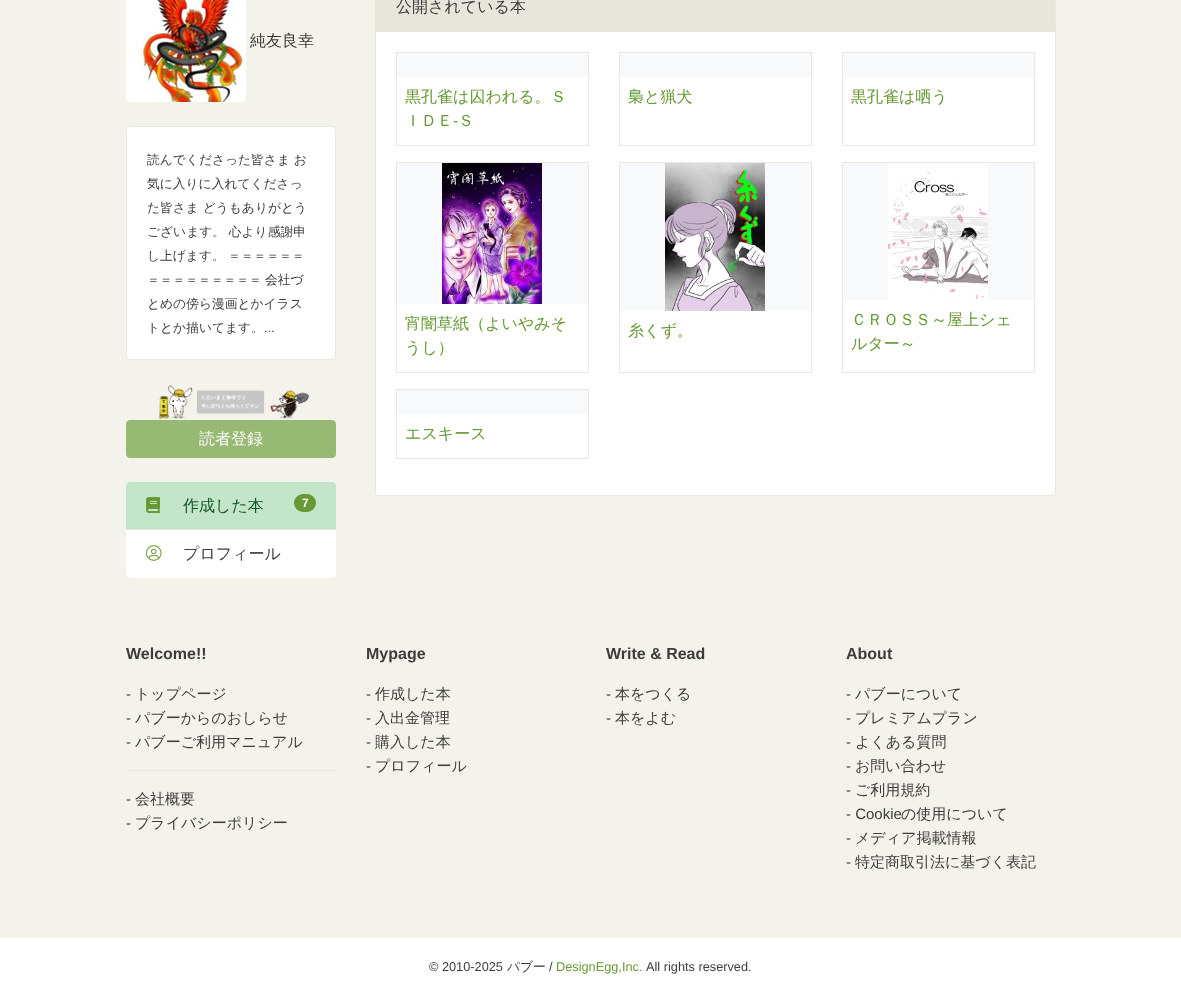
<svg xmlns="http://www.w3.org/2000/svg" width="1181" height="994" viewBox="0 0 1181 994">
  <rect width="100%" height="100%" fill="rgb(244,243,235)"/>
  <image x="126" y="0" width="120" height="102" href="pic1.png"/>
  <text x="250" y="46" font-family="WenQuanYi Zen Hei" font-size="16" font-weight="500" fill="rgb(60,60,60)">純友良幸</text>
  <rect x="126.5" y="126.5" width="209" height="233" rx="3.5" fill="rgb(255,255,255)" stroke="rgb(234,233,223)"/>
  <g font-family="WenQuanYi Zen Hei" font-size="12.75" font-weight="500" fill="rgb(60,60,60)">
    <text>
      <tspan x="147" y="164">読んでくださった皆さま お</tspan>
      <tspan x="147" y="188">気に入りに入れてくださっ</tspan>
      <tspan x="147" y="212">た皆さま どうもありがとう</tspan>
      <tspan x="147" y="236">ございます。 心より感謝申</tspan>
      <tspan x="147" y="260">し上げます。</tspan>
    </text>
    <text x="228" y="260">＝＝＝＝＝＝</text>
    <text x="147" y="284">＝＝＝＝＝＝＝＝＝</text>
    <text x="265" y="284">会社づ</text>
    <text>
      <tspan x="147" y="308">とめの傍ら漫画とかイラス</tspan>
      <tspan x="147" y="332">トとか描いてます。</tspan>
    </text>
  </g>
  <text x="264" y="332" font-family="Liberation Sans" font-size="12.75" fill="rgb(60,60,60)">...</text>
  <image x="158" y="385" width="152" height="34" href="pic2.png"/>
  <rect x="126.5" y="420.5" width="209" height="37" rx="3.5" fill="rgb(152,185,115)" stroke="rgb(152,185,115)"/>
  <text x="199" y="444" font-family="WenQuanYi Zen Hei" font-size="16" font-weight="500" fill="rgb(251,251,248)">読者登録</text>
  <path d="M130 482H332C334 482 336 484 336 486V530H126V486C126 484 128 482 130 482Z" fill="rgb(195,230,203)"/>
  <image x="146" y="497" width="14" height="16" href="pic3.png"/>
  <text x="183" y="511" font-family="WenQuanYi Zen Hei" font-size="16" font-weight="500" fill="rgb(21,87,36)">作成した本</text>
  <rect x="294" y="494" width="22" height="18" rx="9" fill="rgb(102,153,51)"/>
  <text x="302" y="507" font-family="Liberation Sans" font-size="12" font-weight="bold" fill="rgb(255,255,255)">7</text>
  <path d="M126 529H336V574C336 576 334 578 332 578H130C128 578 126 576 126 574Z" fill="rgb(255,255,255)"/>
  <rect x="126" y="529" width="210" height="1" fill="rgb(232,230,219)"/>
  <image x="146" y="545" width="16" height="16" href="pic4.png"/>
  <text x="183" y="559" font-family="WenQuanYi Zen Hei" font-size="16" font-weight="500" fill="rgb(60,60,60)">プロフィール</text>
  <rect x="375.5" y="-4.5" width="680" height="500" rx="3.5" fill="rgb(255,255,255)" stroke="rgb(234,233,223)"/>
  <rect x="376" y="0" width="679" height="31" fill="rgb(232,230,219)"/>
  <rect x="376" y="31" width="679" height="1" fill="rgb(234,233,223)"/>
  <text x="396" y="12" font-family="WenQuanYi Zen Hei" font-size="16" font-weight="500" fill="rgb(60,60,60)">公開されている本</text>
  <rect x="396.5" y="52.5" width="192" height="93" fill="none" stroke="rgb(234,233,223)"/>
  <rect x="397" y="53" width="191" height="24" fill="rgb(248,249,250)"/>
  <g font-family="WenQuanYi Zen Hei" font-size="16" font-weight="500" fill="rgb(102,153,51)">
    <text>
      <tspan x="405" y="102">黒孔雀は囚われる。Ｓ</tspan>
      <tspan x="405" y="126">ＩＤＥ</tspan>
    </text>
  </g>
  <text x="453" y="126" font-family="Liberation Sans" font-size="16" fill="rgb(102,153,51)">-</text>
  <text x="458" y="126" font-family="WenQuanYi Zen Hei" font-size="16" font-weight="500" fill="rgb(102,153,51)">Ｓ</text>
  <rect x="619.5" y="52.5" width="192" height="93" fill="none" stroke="rgb(234,233,223)"/>
  <rect x="620" y="53" width="191" height="24" fill="rgb(248,249,250)"/>
  <text x="628" y="102" font-family="WenQuanYi Zen Hei" font-size="16" font-weight="500" fill="rgb(102,153,51)">梟と猟犬</text>
  <rect x="842.5" y="52.5" width="192" height="93" fill="none" stroke="rgb(234,233,223)"/>
  <rect x="843" y="53" width="191" height="24" fill="rgb(248,249,250)"/>
  <text x="851" y="102" font-family="WenQuanYi Zen Hei" font-size="16" font-weight="500" fill="rgb(102,153,51)">黒孔雀は哂う</text>
  <rect x="396.5" y="162.5" width="192" height="210" fill="none" stroke="rgb(234,233,223)"/>
  <rect x="397" y="163" width="191" height="141" fill="rgb(248,249,250)"/>
  <image x="442" y="163" width="100" height="141" href="pic5.png"/>
  <g font-family="WenQuanYi Zen Hei" font-size="16" font-weight="500" fill="rgb(102,153,51)">
    <text>
      <tspan x="405" y="329">宵闇草紙（よいやみそ</tspan>
      <tspan x="405" y="353">うし）</tspan>
    </text>
  </g>
  <rect x="619.5" y="162.5" width="192" height="210" fill="none" stroke="rgb(234,233,223)"/>
  <rect x="620" y="163" width="191" height="148" fill="rgb(248,249,250)"/>
  <image x="665" y="163" width="100" height="148" href="pic6.png"/>
  <text x="628" y="336" font-family="WenQuanYi Zen Hei" font-size="16" font-weight="500" fill="rgb(102,153,51)">糸くず。</text>
  <rect x="842.5" y="162.5" width="192" height="210" fill="none" stroke="rgb(234,233,223)"/>
  <rect x="843" y="163" width="191" height="137" fill="rgb(248,249,250)"/>
  <image x="888" y="163" width="100" height="137" href="pic7.png"/>
  <g font-family="WenQuanYi Zen Hei" font-size="16" font-weight="500" fill="rgb(102,153,51)">
    <text>
      <tspan x="851" y="325">ＣＲＯＳＳ～屋上シェ</tspan>
      <tspan x="851" y="349">ルター～</tspan>
    </text>
  </g>
  <rect x="396.5" y="389.5" width="192" height="69" fill="none" stroke="rgb(234,233,223)"/>
  <rect x="397" y="390" width="191" height="24" fill="rgb(248,249,250)"/>
  <text x="405" y="439" font-family="WenQuanYi Zen Hei" font-size="16" font-weight="500" fill="rgb(102,153,51)">エスキース</text>
  <text x="126" y="659" font-family="Liberation Sans" font-size="16" font-weight="bold" fill="rgb(60,60,60)">Welcome!!</text>
  <text x="126" y="699" font-family="Liberation Sans" font-size="15" fill="rgb(60,60,60)">-</text>
  <text x="135" y="699" font-family="WenQuanYi Zen Hei" font-size="15" font-weight="500" fill="rgb(60,60,60)">トップページ</text>
  <text x="126" y="723" font-family="Liberation Sans" font-size="15" fill="rgb(60,60,60)">-</text>
  <text x="135" y="723" font-family="WenQuanYi Zen Hei" font-size="15" font-weight="500" fill="rgb(60,60,60)">パブーからのおしらせ</text>
  <text x="126" y="747" font-family="Liberation Sans" font-size="15" fill="rgb(60,60,60)">-</text>
  <text x="135" y="747" font-family="WenQuanYi Zen Hei" font-size="15" font-weight="500" fill="rgb(60,60,60)">パブーご利用マニュアル</text>
  <rect x="126" y="770" width="210" height="1" fill="rgb(234,233,223)"/>
  <text x="126" y="804" font-family="Liberation Sans" font-size="15" fill="rgb(60,60,60)">-</text>
  <text x="135" y="804" font-family="WenQuanYi Zen Hei" font-size="15" font-weight="500" fill="rgb(60,60,60)">会社概要</text>
  <text x="126" y="828" font-family="Liberation Sans" font-size="15" fill="rgb(60,60,60)">-</text>
  <text x="135" y="828" font-family="WenQuanYi Zen Hei" font-size="15" font-weight="500" fill="rgb(60,60,60)">プライバシーポリシー</text>
  <text x="366" y="659" font-family="Liberation Sans" font-size="16" font-weight="bold" fill="rgb(60,60,60)">Mypage</text>
  <text x="366" y="699" font-family="Liberation Sans" font-size="15" fill="rgb(60,60,60)">-</text>
  <text x="375" y="699" font-family="WenQuanYi Zen Hei" font-size="15" font-weight="500" fill="rgb(60,60,60)">作成した本</text>
  <text x="366" y="723" font-family="Liberation Sans" font-size="15" fill="rgb(60,60,60)">-</text>
  <text x="375" y="723" font-family="WenQuanYi Zen Hei" font-size="15" font-weight="500" fill="rgb(60,60,60)">入出金管理</text>
  <text x="366" y="747" font-family="Liberation Sans" font-size="15" fill="rgb(60,60,60)">-</text>
  <text x="375" y="747" font-family="WenQuanYi Zen Hei" font-size="15" font-weight="500" fill="rgb(60,60,60)">購入した本</text>
  <text x="366" y="771" font-family="Liberation Sans" font-size="15" fill="rgb(60,60,60)">-</text>
  <text x="375" y="771" font-family="WenQuanYi Zen Hei" font-size="15" font-weight="500" fill="rgb(60,60,60)">プロフィール</text>
  <text x="606" y="659" font-family="Liberation Sans" font-size="16" font-weight="bold" fill="rgb(60,60,60)">Write &amp; Read</text>
  <text x="606" y="699" font-family="Liberation Sans" font-size="15" fill="rgb(60,60,60)">-</text>
  <text x="615" y="699" font-family="WenQuanYi Zen Hei" font-size="15" font-weight="500" fill="rgb(60,60,60)">本をつくる</text>
  <text x="606" y="723" font-family="Liberation Sans" font-size="15" fill="rgb(60,60,60)">-</text>
  <text x="615" y="723" font-family="WenQuanYi Zen Hei" font-size="15" font-weight="500" fill="rgb(60,60,60)">本をよむ</text>
  <text x="846" y="659" font-family="Liberation Sans" font-size="16" font-weight="bold" fill="rgb(60,60,60)">About</text>
  <text x="846" y="699" font-family="Liberation Sans" font-size="15" fill="rgb(60,60,60)">-</text>
  <text x="855" y="699" font-family="WenQuanYi Zen Hei" font-size="15" font-weight="500" fill="rgb(60,60,60)">パブーについて</text>
  <text x="846" y="723" font-family="Liberation Sans" font-size="15" fill="rgb(60,60,60)">-</text>
  <text x="855" y="723" font-family="WenQuanYi Zen Hei" font-size="15" font-weight="500" fill="rgb(60,60,60)">プレミアムプラン</text>
  <text x="846" y="747" font-family="Liberation Sans" font-size="15" fill="rgb(60,60,60)">-</text>
  <text x="855" y="747" font-family="WenQuanYi Zen Hei" font-size="15" font-weight="500" fill="rgb(60,60,60)">よくある質問</text>
  <text x="846" y="771" font-family="Liberation Sans" font-size="15" fill="rgb(60,60,60)">-</text>
  <text x="855" y="771" font-family="WenQuanYi Zen Hei" font-size="15" font-weight="500" fill="rgb(60,60,60)">お問い合わせ</text>
  <text x="846" y="795" font-family="Liberation Sans" font-size="15" fill="rgb(60,60,60)">-</text>
  <text x="855" y="795" font-family="WenQuanYi Zen Hei" font-size="15" font-weight="500" fill="rgb(60,60,60)">ご利用規約</text>
  <text x="846" y="819" font-family="Liberation Sans" font-size="15" fill="rgb(60,60,60)">- Cookie</text>
  <text x="901" y="819" font-family="WenQuanYi Zen Hei" font-size="15" font-weight="500" fill="rgb(60,60,60)">の使用について</text>
  <text x="846" y="843" font-family="Liberation Sans" font-size="15" fill="rgb(60,60,60)">-</text>
  <text x="855" y="843" font-family="WenQuanYi Zen Hei" font-size="15" font-weight="500" fill="rgb(60,60,60)">メディア掲載情報</text>
  <text x="846" y="867" font-family="Liberation Sans" font-size="15" fill="rgb(60,60,60)">-</text>
  <text x="855" y="867" font-family="WenQuanYi Zen Hei" font-size="15" font-weight="500" fill="rgb(60,60,60)">特定商取引法に基づく表記</text>
  <rect x="0" y="938" width="1181" height="56" fill="rgb(255,255,255)"/>
  <text x="429" y="971" font-family="Liberation Sans" font-size="12.75" fill="rgb(60,60,60)">© 2010-2025</text>
  <text x="507" y="971" font-family="WenQuanYi Zen Hei" font-size="12.75" font-weight="500" fill="rgb(60,60,60)">パブー</text>
  <text x="549" y="971" font-family="Liberation Sans" font-size="12.75" fill="rgb(60,60,60)">/</text>
  <text x="556" y="971" font-family="Liberation Sans" font-size="12.75" fill="rgb(102,153,51)">DesignEgg,Inc.</text>
  <text x="646" y="971" font-family="Liberation Sans" font-size="12.75" fill="rgb(60,60,60)">All rights reserved.</text>
</svg>
